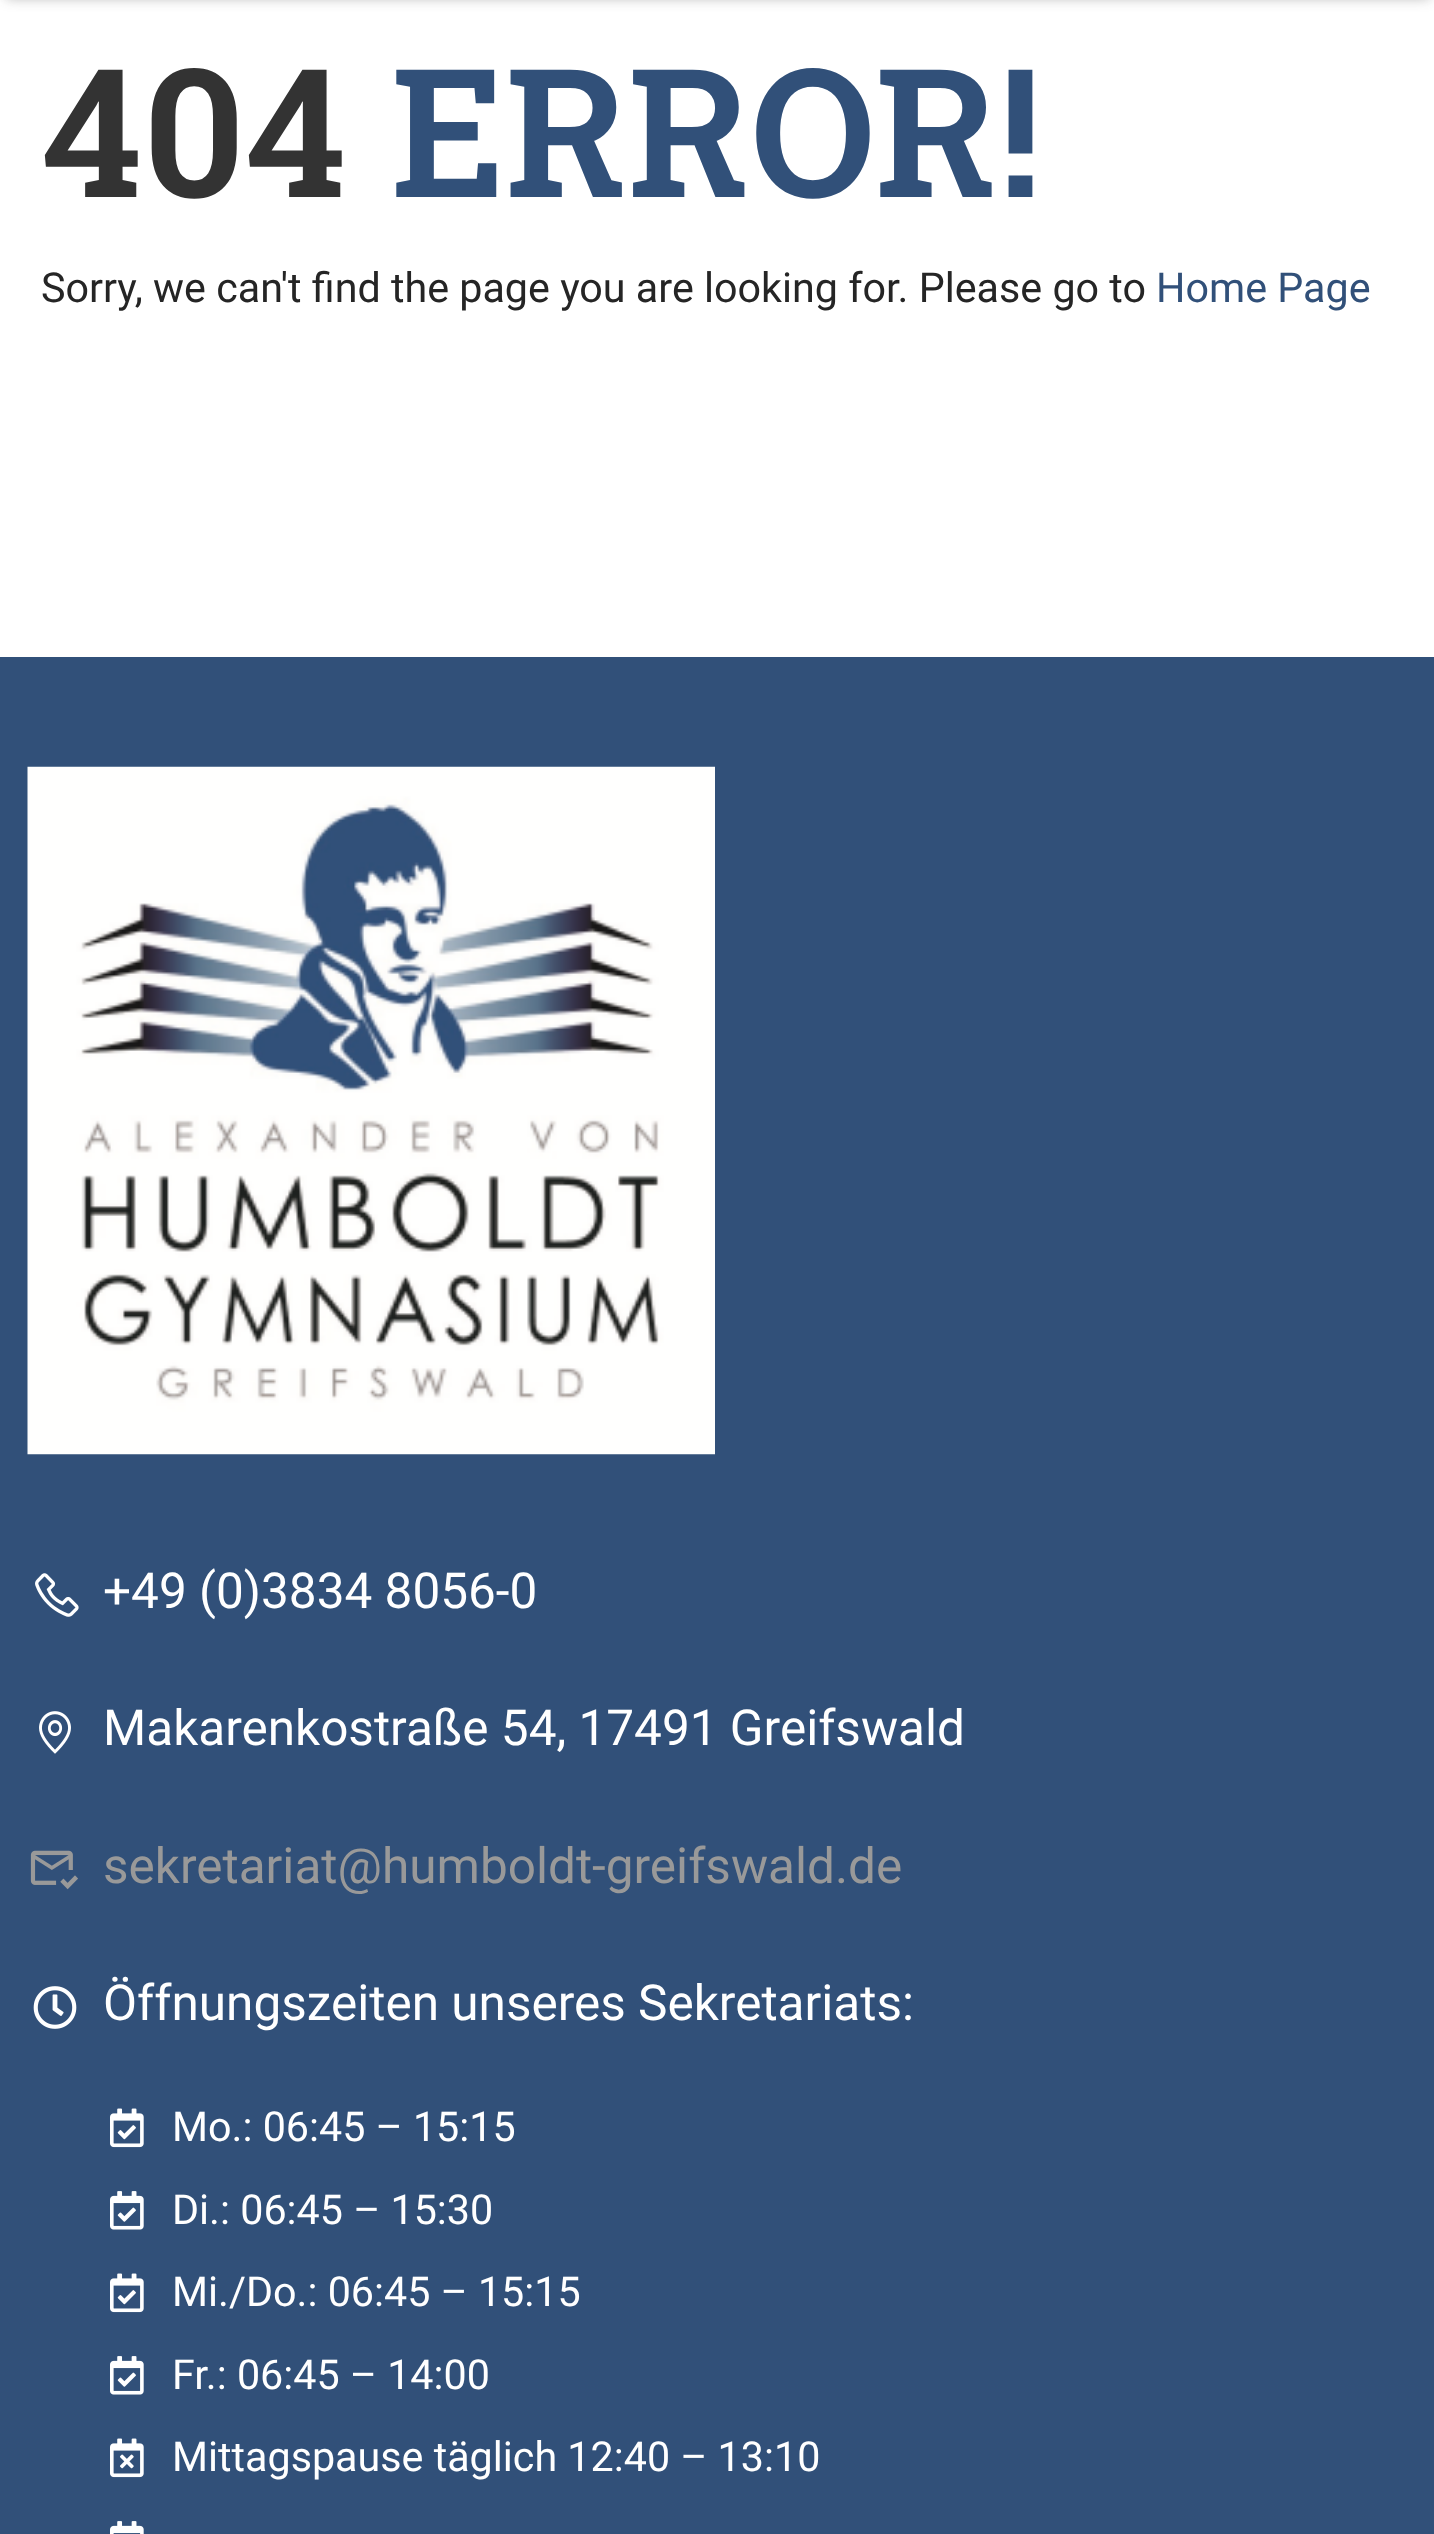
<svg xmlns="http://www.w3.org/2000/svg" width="1434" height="2534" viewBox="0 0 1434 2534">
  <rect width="100%" height="100%" fill="rgb(255,255,255)"/>
  <rect x="6" y="-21" width="1424" height="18" fill="rgba(42,42,42,0.4)" filter="blur(7px)"/>
  <text x="41" y="197" font-family="Roboto Slab" font-size="179" font-weight="600" fill="rgb(51,51,51)">404</text>
  <text x="391" y="197" font-family="Roboto Slab" font-size="179" font-weight="600" fill="rgb(49,80,121)">ERROR!</text>
  <text x="41" y="302" font-family="Roboto" font-size="41.25" fill="rgb(37,37,37)">Sorry, we can't find the page you are looking for. Please go to</text>
  <text x="1156" y="302" font-family="Roboto" font-size="41.25" fill="rgb(49,80,121)">Home Page</text>
  <rect x="0" y="657" width="1434" height="1877" fill="rgb(49,80,121)"/>
  <image x="27" y="766" width="688" height="689" href="pic1.png"/>
  <image x="35" y="1573" width="44" height="44" href="pic2.png"/>
  <text x="103" y="1608" font-family="Roboto" font-size="49.5" fill="rgb(255,255,255)">+49 (0)3834 8056-0</text>
  <image x="39" y="1711" width="32" height="43" href="pic3.png"/>
  <text x="103" y="1745" font-family="Roboto" font-size="49.5" fill="rgb(255,255,255)">Makarenkostraße 54, 17491 Greifswald</text>
  <image x="30" y="1850" width="48" height="40" href="pic4.png"/>
  <text x="103" y="1883" font-family="Roboto" font-size="49.5" fill="rgb(153,153,153)">sekretariat@humboldt-greifswald.de</text>
  <image x="33" y="1986" width="44" height="43" href="pic5.png"/>
  <text x="103" y="2020" font-family="Roboto" font-size="49.5" fill="rgb(255,255,255)">Öffnungszeiten unseres Sekretariats:</text>
  <image x="110" y="2108" width="34" height="40" href="pic6.png"/>
  <text x="172" y="2141" font-family="Roboto" font-size="41.25" fill="rgb(255,255,255)">Mo.: 06:45 – 15:15</text>
  <image x="110" y="2191" width="34" height="39" href="pic7.png"/>
  <text x="172" y="2224" font-family="Roboto" font-size="41.25" fill="rgb(255,255,255)">Di.: 06:45 – 15:30</text>
  <image x="110" y="2273" width="34" height="40" href="pic6.png"/>
  <text x="172" y="2306" font-family="Roboto" font-size="41.25" fill="rgb(255,255,255)">Mi./Do.: 06:45 – 15:15</text>
  <image x="110" y="2356" width="34" height="39" href="pic7.png"/>
  <text x="172" y="2389" font-family="Roboto" font-size="41.25" fill="rgb(255,255,255)">Fr.: 06:45 – 14:00</text>
  <image x="110" y="2438" width="34" height="40" href="pic8.png"/>
  <text x="172" y="2471" font-family="Roboto" font-size="41.25" fill="rgb(255,255,255)">Mittagspause täglich 12:40 – 13:10</text>
  <image x="110" y="2521" width="34" height="13" href="pic9.png"/>
</svg>
